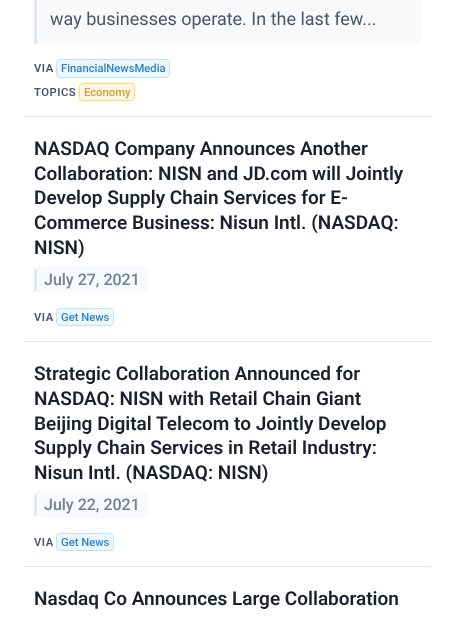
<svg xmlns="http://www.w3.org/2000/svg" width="454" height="625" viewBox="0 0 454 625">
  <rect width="100%" height="100%" fill="rgb(255,255,255)"/>
  <rect x="24" y="116" width="407" height="1" fill="rgb(226,232,240)"/>
  <path d="M34-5H416C419-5 421-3 421 0V39C421 42 419 44 416 44H34Z" fill="rgb(248,249,250)"/>
  <rect x="34" y="0" width="3" height="44" fill="rgb(226,232,240)"/>
  <text x="50" y="25" font-family="Roboto" font-size="18" fill="rgb(74,85,104)">way businesses operate. In the last few...</text>
  <text x="34" y="72" font-family="Roboto" font-size="11.25" font-weight="600" letter-spacing="0.5" fill="rgb(74,85,104)">VIA</text>
  <rect x="56.5" y="59.5" width="113" height="18" rx="3.5" fill="rgb(235,248,255)" stroke="rgb(190,227,248)"/>
  <text x="61" y="72" font-family="Roboto" font-size="11.25" font-weight="500" fill="rgb(49,130,206)">FinancialNewsMedia</text>
  <text x="34" y="96" font-family="Roboto" font-size="11.25" font-weight="600" letter-spacing="0.5" fill="rgb(74,85,104)">TOPICS</text>
  <rect x="79.5" y="83.5" width="55" height="17" rx="3.5" fill="rgb(254,245,231)" stroke="rgb(246,224,94)"/>
  <text x="84" y="96" font-family="Roboto" font-size="11.25" font-weight="500" fill="rgb(214,158,46)">Economy</text>
  <rect x="24" y="341" width="407" height="1" fill="rgb(226,232,240)"/>
  <g font-family="Roboto" font-size="19" font-weight="600" fill="rgb(26,32,44)">
    <text>
      <tspan x="34" y="155">NASDAQ Company Announces Another</tspan>
      <tspan x="34" y="180">Collaboration: NISN and JD.com will Jointly</tspan>
      <tspan x="34" y="204">Develop Supply Chain Services for E-</tspan>
      <tspan x="34" y="229">Commerce Business: Nisun Intl. (NASDAQ:</tspan>
      <tspan x="34" y="254">NISN)</tspan>
    </text>
  </g>
  <rect x="34" y="266" width="114" height="27" rx="4" fill="rgb(247,250,252)"/>
  <rect x="34" y="269" width="3" height="22" fill="rgb(226,232,240)"/>
  <text x="44" y="285" font-family="Roboto" font-size="16" font-weight="500" fill="rgb(113,128,150)">July 27, 2021</text>
  <text x="34" y="321" font-family="Roboto" font-size="11.25" font-weight="600" letter-spacing="0.5" fill="rgb(74,85,104)">VIA</text>
  <rect x="56.5" y="308.5" width="57" height="17" rx="3.5" fill="rgb(235,248,255)" stroke="rgb(190,227,248)"/>
  <text x="61" y="321" font-family="Roboto" font-size="11.25" font-weight="500" fill="rgb(49,130,206)">Get News</text>
  <rect x="24" y="566" width="407" height="1" fill="rgb(226,232,240)"/>
  <g font-family="Roboto" font-size="19" font-weight="600" fill="rgb(26,32,44)">
    <text>
      <tspan x="34" y="380">Strategic Collaboration Announced for</tspan>
      <tspan x="34" y="405">NASDAQ: NISN with Retail Chain Giant</tspan>
      <tspan x="34" y="430">Beijing Digital Telecom to Jointly Develop</tspan>
      <tspan x="34" y="454">Supply Chain Services in Retail Industry:</tspan>
      <tspan x="34" y="479">Nisun Intl. (NASDAQ: NISN)</tspan>
    </text>
  </g>
  <rect x="34" y="491" width="114" height="27" rx="4" fill="rgb(247,250,252)"/>
  <rect x="34" y="494" width="3" height="22" fill="rgb(226,232,240)"/>
  <text x="44" y="510" font-family="Roboto" font-size="16" font-weight="500" fill="rgb(113,128,150)">July 22, 2021</text>
  <text x="34" y="546" font-family="Roboto" font-size="11.25" font-weight="600" letter-spacing="0.5" fill="rgb(74,85,104)">VIA</text>
  <rect x="56.5" y="533.5" width="57" height="17" rx="3.5" fill="rgb(235,248,255)" stroke="rgb(190,227,248)"/>
  <text x="61" y="546" font-family="Roboto" font-size="11.25" font-weight="500" fill="rgb(49,130,206)">Get News</text>
  <text x="34" y="605" font-family="Roboto" font-size="19" font-weight="600" fill="rgb(26,32,44)">Nasdaq Co Announces Large Collaboration</text>
</svg>
